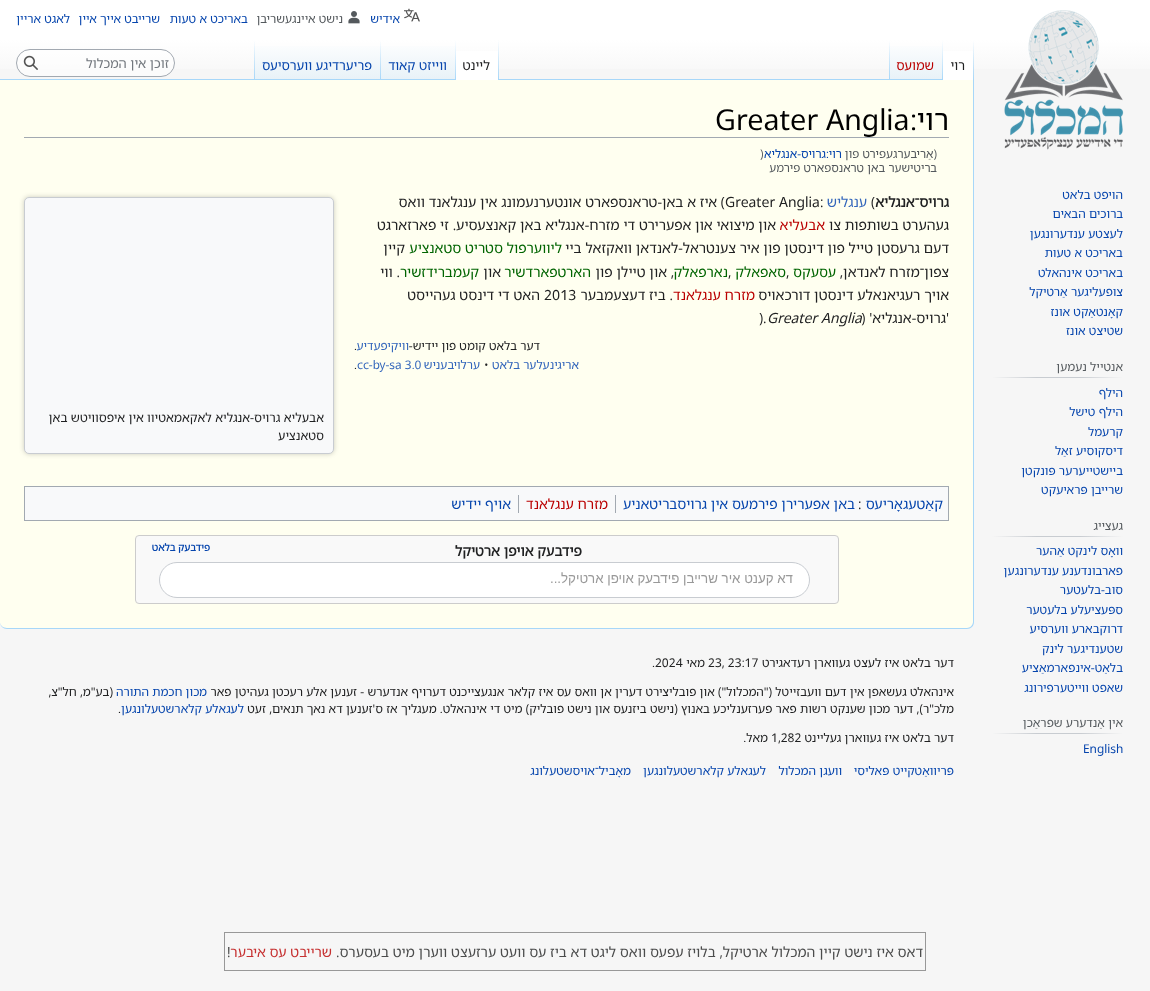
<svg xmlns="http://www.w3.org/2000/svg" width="1150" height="991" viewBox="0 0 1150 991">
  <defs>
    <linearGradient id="g1" gradientUnits="userSpaceOnUse" x1="575" y1="0" x2="575" y2="80"><stop offset="0.5" stop-color="rgb(255,255,255)"/><stop offset="1" stop-color="rgb(246,246,246)"/></linearGradient>
    <linearGradient id="g2" gradientUnits="userSpaceOnUse" x1="974" y1="40" x2="974" y2="80"><stop offset="0" stop-color="rgb(167,215,249)" stop-opacity="0"/><stop offset="1" stop-color="rgb(167,215,249)"/></linearGradient>
    <linearGradient id="g3" gradientUnits="userSpaceOnUse" x1="943" y1="40" x2="943" y2="80"><stop offset="0" stop-color="rgb(255,255,255)"/><stop offset="1" stop-color="rgb(167,215,249)"/></linearGradient>
    <linearGradient id="g4" gradientUnits="userSpaceOnUse" x1="916" y1="80" x2="916" y2="40"><stop offset="0" stop-color="rgb(119,193,246)"/><stop offset="0.03" stop-color="rgb(232,242,248)"/><stop offset="1" stop-color="rgb(255,255,255)"/></linearGradient>
    <linearGradient id="g5" gradientUnits="userSpaceOnUse" x1="890" y1="40" x2="890" y2="80"><stop offset="0" stop-color="rgb(167,215,249)" stop-opacity="0"/><stop offset="1" stop-color="rgb(167,215,249)"/></linearGradient>
    <linearGradient id="g6" gradientUnits="userSpaceOnUse" x1="499" y1="40" x2="499" y2="80"><stop offset="0" stop-color="rgb(167,215,249)" stop-opacity="0"/><stop offset="1" stop-color="rgb(167,215,249)"/></linearGradient>
    <linearGradient id="g7" gradientUnits="userSpaceOnUse" x1="456" y1="40" x2="456" y2="80"><stop offset="0" stop-color="rgb(255,255,255)"/><stop offset="1" stop-color="rgb(167,215,249)"/></linearGradient>
    <linearGradient id="g8" gradientUnits="userSpaceOnUse" x1="418" y1="80" x2="418" y2="40"><stop offset="0" stop-color="rgb(119,193,246)"/><stop offset="0.03" stop-color="rgb(232,242,248)"/><stop offset="1" stop-color="rgb(255,255,255)"/></linearGradient>
    <linearGradient id="g9" gradientUnits="userSpaceOnUse" x1="381" y1="40" x2="381" y2="80"><stop offset="0" stop-color="rgb(167,215,249)" stop-opacity="0"/><stop offset="1" stop-color="rgb(167,215,249)"/></linearGradient>
    <linearGradient id="g10" gradientUnits="userSpaceOnUse" x1="317" y1="80" x2="317" y2="40"><stop offset="0" stop-color="rgb(119,193,246)"/><stop offset="0.03" stop-color="rgb(232,242,248)"/><stop offset="1" stop-color="rgb(255,255,255)"/></linearGradient>
    <linearGradient id="g11" gradientUnits="userSpaceOnUse" x1="255" y1="40" x2="255" y2="80"><stop offset="0" stop-color="rgb(167,215,249)" stop-opacity="0"/><stop offset="1" stop-color="rgb(167,215,249)"/></linearGradient>
    <linearGradient id="g12" gradientUnits="userSpaceOnUse" x1="1123" y1="378" x2="992" y2="378"><stop offset="0" stop-color="rgb(246,246,246)"/><stop offset="0.33" stop-color="rgb(200,204,209)"/><stop offset="0.66" stop-color="rgb(200,204,209)"/><stop offset="1" stop-color="rgb(246,246,246)"/></linearGradient>
    <linearGradient id="g13" gradientUnits="userSpaceOnUse" x1="1123" y1="537" x2="992" y2="537"><stop offset="0" stop-color="rgb(246,246,246)"/><stop offset="0.33" stop-color="rgb(200,204,209)"/><stop offset="0.66" stop-color="rgb(200,204,209)"/><stop offset="1" stop-color="rgb(246,246,246)"/></linearGradient>
    <linearGradient id="g14" gradientUnits="userSpaceOnUse" x1="1123" y1="734" x2="992" y2="734"><stop offset="0" stop-color="rgb(246,246,246)"/><stop offset="0.33" stop-color="rgb(200,204,209)"/><stop offset="0.66" stop-color="rgb(200,204,209)"/><stop offset="1" stop-color="rgb(246,246,246)"/></linearGradient>
  </defs>
  <rect width="100%" height="100%" fill="rgb(246,246,246)"/>
  <rect x="0" y="0" width="1150" height="69" fill="url(#g1)"/>
  <image x="404" y="8" width="16" height="14" href="pic1.png"/>
  <text x="400" y="23" font-family="Noto Sans Hebrew" font-size="12" font-weight="100" direction="rtl" fill="rgb(6,69,173)">אידיש</text>
  <image x="348" y="11" width="12" height="13" href="pic2.png"/>
  <text x="343" y="23" font-family="Noto Sans Hebrew" font-size="12" font-weight="100" direction="rtl" fill="rgb(84,89,93)">נישט איינגעשריבן</text>
  <g font-family="Noto Sans Hebrew" font-size="12" font-weight="100" direction="rtl" fill="rgb(6,69,173)">
    <text x="248" y="23">באריכט א טעות</text>
    <text x="160" y="23">שרייבט אייך איין</text>
    <text x="70" y="23">לאגט אריין</text>
  </g>
  <path d="M0 80H973V622C973 625 970 628 967 628H7C3 628 0 625 0 622Z" fill="rgb(255,255,240)"/>
  <path d="M0 79H974V622C974 626 971 629 967 629H7C3 629 0 626 0 622ZM0 80H973V622C973 625 970 628 967 628H7C3 628 0 625 0 622Z" fill="rgb(167,215,249)" fill-rule="evenodd"/>
  <rect x="973" y="40" width="1" height="40" fill="url(#g2)"/>
  <rect x="943" y="51" width="30" height="29" fill="rgb(255,255,255)"/>
  <rect x="942" y="40" width="1" height="40" fill="url(#g3)"/>
  <text x="965" y="70" font-family="Noto Sans Hebrew" font-size="13" font-weight="100" direction="rtl" fill="rgb(32,33,34)">רוי</text>
  <rect x="889" y="46" width="53" height="33" fill="url(#g4)"/>
  <rect x="889" y="40" width="1" height="40" fill="url(#g5)"/>
  <text x="934" y="70" font-family="Noto Sans Hebrew" font-size="13" font-weight="100" direction="rtl" fill="rgb(186,0,0)">שמועס</text>
  <rect x="498" y="40" width="1" height="40" fill="url(#g6)"/>
  <rect x="456" y="51" width="42" height="29" fill="rgb(255,255,255)"/>
  <rect x="455" y="40" width="1" height="40" fill="url(#g7)"/>
  <text x="490" y="70" font-family="Noto Sans Hebrew" font-size="13" font-weight="100" direction="rtl" fill="rgb(32,33,34)">ליינט</text>
  <rect x="380" y="46" width="75" height="33" fill="url(#g8)"/>
  <rect x="380" y="40" width="1" height="40" fill="url(#g9)"/>
  <text x="447" y="70" font-family="Noto Sans Hebrew" font-size="13" font-weight="100" direction="rtl" fill="rgb(6,69,173)">ווייזט קאוד</text>
  <rect x="254" y="46" width="126" height="33" fill="url(#g10)"/>
  <rect x="254" y="40" width="1" height="40" fill="url(#g11)"/>
  <text x="372" y="70" font-family="Noto Sans Hebrew" font-size="13" font-weight="100" direction="rtl" fill="rgb(6,69,173)">פריערדיגע ווערסיעס</text>
  <rect x="16.5" y="49.5" width="158" height="27" rx="13.5" fill="rgba(255,255,255,0.5)" stroke="rgb(162,169,177)"/>
  <text x="169" y="68" font-family="Noto Sans Hebrew" font-size="13" font-weight="100" direction="rtl" fill="rgb(114,119,125)">זוכן אין המכלול</text>
  <image x="23" y="55" width="15" height="15" href="pic3.png"/>
  <image x="1004" y="10" width="120" height="140" href="pic4.png"/>
  <g font-family="Noto Sans Hebrew" font-size="12" font-weight="100" direction="rtl" fill="rgb(6,69,173)">
    <text>
      <tspan x="1123" y="199">הויפט בלאט</tspan>
      <tspan x="1123" y="218">ברוכים הבאים</tspan>
      <tspan x="1123" y="238">לעצטע ענדערונגען</tspan>
      <tspan x="1123" y="257">באריכט א טעות</tspan>
      <tspan x="1123" y="277">באריכט אינהאלט</tspan>
      <tspan x="1123" y="296">צופעליגער אַרטיקל</tspan>
      <tspan x="1123" y="316">קאָנטאַקט אונז</tspan>
      <tspan x="1123" y="335">שטיצט אונז</tspan>
    </text>
  </g>
  <rect x="992" y="377" width="131" height="1" fill="url(#g12)"/>
  <text x="1123" y="371" font-family="Noto Sans Hebrew" font-size="12" font-weight="100" direction="rtl" fill="rgb(84,89,93)">אנטייל נעמען</text>
  <g font-family="Noto Sans Hebrew" font-size="12" font-weight="100" direction="rtl" fill="rgb(6,69,173)">
    <text>
      <tspan x="1123" y="397">הילף</tspan>
      <tspan x="1123" y="416">הילף טישל</tspan>
      <tspan x="1123" y="436">קרעמל</tspan>
      <tspan x="1123" y="455">דיסקוסיע זאַל</tspan>
      <tspan x="1123" y="475">ביישטייערער פּונקטן</tspan>
      <tspan x="1123" y="494">שרייבן פּראיעקט</tspan>
    </text>
  </g>
  <rect x="992" y="536" width="131" height="1" fill="url(#g13)"/>
  <text x="1123" y="530" font-family="Noto Sans Hebrew" font-size="12" font-weight="100" direction="rtl" fill="rgb(84,89,93)">געצייג</text>
  <g font-family="Noto Sans Hebrew" font-size="12" font-weight="100" direction="rtl" fill="rgb(6,69,173)">
    <text>
      <tspan x="1123" y="555">וואָס לינקט אַהער</tspan>
      <tspan x="1123" y="575">פארבונדענע ענדערונגען</tspan>
      <tspan x="1123" y="594">סוב-בלעטער</tspan>
      <tspan x="1123" y="614">ספּעציעלע בלעטער</tspan>
      <tspan x="1123" y="633">דרוקבארע ווערסיע</tspan>
      <tspan x="1123" y="653">שטענדיגער לינק</tspan>
      <tspan x="1123" y="672">בלאַט-אינפארמאַציע</tspan>
      <tspan x="1123" y="692">שאפט ווייטערפירונג</tspan>
    </text>
  </g>
  <rect x="992" y="733" width="131" height="1" fill="url(#g14)"/>
  <text x="1123" y="727" font-family="Noto Sans Hebrew" font-size="12" font-weight="100" direction="rtl" fill="rgb(84,89,93)">אין אַנדערע שפראַכן</text>
  <text x="1083" y="753" font-family="Noto Sans Hebrew" font-size="12" font-weight="100" fill="rgb(6,69,173)">English</text>
  <rect x="24" y="137" width="925" height="1" fill="rgb(162,169,177)"/>
  <text x="949" y="130" font-family="Noto Sans Hebrew" font-size="28.75" font-weight="100" direction="rtl" fill="rgb(0,0,0)">רוי</text>
  <g font-family="Noto Sans Hebrew" font-size="28.75" font-weight="100" fill="rgb(0,0,0)">
    <text x="910" y="130">:</text>
    <text x="715" y="130">Greater Anglia</text>
  </g>
  <text x="937" y="158" font-family="Noto Sans Hebrew" font-size="11.75" font-weight="100" direction="rtl" fill="rgb(84,89,93)">(אַריבערגעפירט פון</text>
  <text x="842" y="158" font-family="Noto Sans Hebrew" font-size="11.75" font-weight="100" direction="rtl" fill="rgb(6,69,173)">רוי:גרויס-אנגליא</text>
  <text x="760" y="158" font-family="Noto Sans Hebrew" font-size="11.75" font-weight="100" fill="rgb(84,89,93)">)</text>
  <text x="937" y="172" font-family="Noto Sans Hebrew" font-size="11.75" font-weight="100" direction="rtl" fill="rgb(84,89,93)">בריטישער באן טראנספארט פירמע</text>
  <text x="949" y="207" font-family="Noto Sans Hebrew" font-size="14" font-weight="bold" direction="rtl" fill="rgb(32,33,34)">גרויס־אנגליא</text>
  <text x="871" y="207" font-family="Noto Sans Hebrew" font-size="14" font-weight="100" fill="rgb(32,33,34)">(</text>
  <text x="867" y="207" font-family="Noto Sans Hebrew" font-size="14" font-weight="100" direction="rtl" fill="rgb(51,102,187)">ענגליש</text>
  <g font-family="Noto Sans Hebrew" font-size="14" font-weight="100" fill="rgb(32,33,34)">
    <text x="820" y="207">:</text>
    <text x="725" y="207">Greater Anglia</text>
  </g>
  <g font-family="Noto Sans Hebrew" font-size="14" font-weight="100" direction="rtl" fill="rgb(32,33,34)">
    <text x="725" y="207">) איז א באן-טראנספארט אונטערנעמונג אין ענגלאנד וואס</text>
    <text x="949" y="230">געהערט בשותפות צו</text>
  </g>
  <text x="825" y="230" font-family="Noto Sans Hebrew" font-size="14" font-weight="100" direction="rtl" fill="rgb(186,0,0)">אבעליא</text>
  <g font-family="Noto Sans Hebrew" font-size="14" font-weight="100" direction="rtl" fill="rgb(32,33,34)">
    <text x="776" y="230">און מיצואי און אפערירט די מזרח-אנגליא באן קאנצעסיע. זי פארזארגט</text>
    <text x="949" y="253">דעם גרעסטן טייל פון דינסטן פון איר צענטראל-לאנדאן וואקזאל ביי</text>
  </g>
  <text x="562" y="253" font-family="Noto Sans Hebrew" font-size="14" font-weight="100" direction="rtl" fill="rgb(0,100,0)">ליווערפול סטריט סטאנציע</text>
  <g font-family="Noto Sans Hebrew" font-size="14" font-weight="100" direction="rtl" fill="rgb(32,33,34)">
    <text x="405" y="253">קיין</text>
    <text x="949" y="277">צפון־מזרח לאנדאן,</text>
  </g>
  <text x="836" y="277" font-family="Noto Sans Hebrew" font-size="14" font-weight="100" direction="rtl" fill="rgb(0,100,0)">עסעקס</text>
  <text x="786" y="277" font-family="Noto Sans Hebrew" font-size="14" font-weight="100" fill="rgb(32,33,34)">,</text>
  <text x="786" y="277" font-family="Noto Sans Hebrew" font-size="14" font-weight="100" direction="rtl" fill="rgb(0,100,0)">סאפאלק</text>
  <text x="728" y="277" font-family="Noto Sans Hebrew" font-size="14" font-weight="100" fill="rgb(32,33,34)">,</text>
  <text x="728" y="277" font-family="Noto Sans Hebrew" font-size="14" font-weight="100" direction="rtl" fill="rgb(0,100,0)">נארפאלק</text>
  <text x="674" y="277" font-family="Noto Sans Hebrew" font-size="14" font-weight="100" direction="rtl" fill="rgb(32,33,34)">, און טיילן פון</text>
  <text x="591" y="277" font-family="Noto Sans Hebrew" font-size="14" font-weight="100" direction="rtl" fill="rgb(0,100,0)">הארטפארדשיר</text>
  <text x="501" y="277" font-family="Noto Sans Hebrew" font-size="14" font-weight="100" direction="rtl" fill="rgb(32,33,34)">און</text>
  <text x="479" y="277" font-family="Noto Sans Hebrew" font-size="14" font-weight="100" direction="rtl" fill="rgb(0,100,0)">קעמברידזשיר</text>
  <g font-family="Noto Sans Hebrew" font-size="14" font-weight="100" direction="rtl" fill="rgb(32,33,34)">
    <text x="400" y="277">. ווי</text>
    <text x="949" y="300">אויך רעגיאנאלע דינסטן דורכאויס</text>
  </g>
  <text x="755" y="300" font-family="Noto Sans Hebrew" font-size="14" font-weight="100" direction="rtl" fill="rgb(186,0,0)">מזרח ענגלאנד</text>
  <text x="673" y="300" font-family="Noto Sans Hebrew" font-size="14" font-weight="100" direction="rtl" fill="rgb(32,33,34)">. ביז דעצעמבער</text>
  <text x="544" y="300" font-family="Noto Sans Hebrew" font-size="14" font-weight="100" fill="rgb(32,33,34)">2013</text>
  <g font-family="Noto Sans Hebrew" font-size="14" font-weight="100" direction="rtl" fill="rgb(32,33,34)">
    <text x="540" y="300">האט די דינסט געהייסט</text>
    <text x="949" y="323">'גרויס-אנגליא' (</text>
  </g>
  <text x="767" y="323" font-family="Noto Sans Hebrew" font-size="14" font-weight="100" font-style="italic" fill="rgb(32,33,34)">Greater Anglia</text>
  <text x="759" y="323" font-family="Noto Sans Hebrew" font-size="14" font-weight="100" fill="rgb(32,33,34)">).</text>
  <text x="540" y="350" font-family="Noto Sans Hebrew" font-size="11.9" font-weight="100" direction="rtl" fill="rgb(32,33,34)">דער בלאט קומט פון יידיש-</text>
  <text x="409" y="350" font-family="Noto Sans Hebrew" font-size="11.9" font-weight="100" direction="rtl" fill="rgb(51,102,187)">וויקיפעדיע</text>
  <text x="354" y="350" font-family="Noto Sans Hebrew" font-size="11.9" font-weight="100" fill="rgb(32,33,34)">.</text>
  <text x="579" y="369" font-family="Noto Sans Hebrew" font-size="11.9" font-weight="100" direction="rtl" fill="rgb(51,102,187)">אריגינעלער בלאט</text>
  <text x="484" y="369" font-family="Noto Sans Hebrew" font-size="11.9" font-weight="100" fill="rgb(32,33,34)">•</text>
  <text x="480" y="369" font-family="Noto Sans Hebrew" font-size="11.9" font-weight="100" direction="rtl" fill="rgb(51,102,187)">ערלויבעניש</text>
  <text x="357" y="369" font-family="Noto Sans Hebrew" font-size="11.9" font-weight="100" fill="rgb(51,102,187)">cc-by-sa 3.0</text>
  <text x="354" y="369" font-family="Noto Sans Hebrew" font-size="11.9" font-weight="100" fill="rgb(32,33,34)">.</text>
  <rect x="24" y="197" width="310" height="257" rx="5" fill="rgba(0,0,0,0.2)" filter="blur(2.5px)"/>
  <rect x="24.5" y="197.5" width="309" height="256" rx="4.5" fill="rgb(248,249,250)" stroke="rgb(200,204,209)"/>
  <g font-family="Noto Sans Hebrew" font-size="12.4" font-weight="100" direction="rtl" fill="rgb(32,33,34)">
    <text>
      <tspan x="324" y="422">אבעליא גרויס-אנגליא לאקאמאטיוו אין איפסוויטש באן</tspan>
      <tspan x="324" y="440">סטאנציע</tspan>
    </text>
  </g>
  <rect x="224.5" y="932.5" width="701" height="38" fill="none" stroke="rgb(152,152,152)"/>
  <text x="923" y="957" font-family="Noto Sans Hebrew" font-size="14" font-weight="100" direction="rtl" fill="rgb(75,76,76)">דאס איז נישט קיין המכלול ארטיקל, בלויז עפעס וואס ליגט דא ביז עס וועט ערזעצט ווערן מיט בעסערס.</text>
  <text x="332" y="957" font-family="Noto Sans Hebrew" font-size="14" font-weight="100" direction="rtl" fill="rgb(198,49,49)">שרייבט עס איבער</text>
  <text x="227" y="957" font-family="Noto Sans Hebrew" font-size="14" font-weight="100" fill="rgb(75,76,76)">!</text>
  <rect x="24.5" y="486.5" width="924" height="34" fill="rgb(248,249,250)" stroke="rgb(162,169,177)"/>
  <text x="943" y="509" font-family="Noto Sans Hebrew" font-size="14" font-weight="100" direction="rtl" fill="rgb(6,69,173)">קאַטעגאָריעס</text>
  <text x="858" y="509" font-family="Noto Sans Hebrew" font-size="14" font-weight="100" fill="rgb(32,33,34)">:</text>
  <text x="855" y="509" font-family="Noto Sans Hebrew" font-size="14" font-weight="100" direction="rtl" fill="rgb(6,69,173)">באן אפערירן פירמעס אין גרויסבריטאניע</text>
  <rect x="615" y="495" width="1" height="18" fill="rgb(162,169,177)"/>
  <text x="608" y="509" font-family="Noto Sans Hebrew" font-size="14" font-weight="100" direction="rtl" fill="rgb(186,0,0)">מזרח ענגלאנד</text>
  <rect x="518" y="495" width="1" height="18" fill="rgb(162,169,177)"/>
  <text x="511" y="509" font-family="Noto Sans Hebrew" font-size="14" font-weight="100" direction="rtl" fill="rgb(6,69,173)">אויף יידיש</text>
  <rect x="135.5" y="535.5" width="703" height="68" rx="3.5" fill="rgb(249,249,249)" stroke="rgb(204,204,204)"/>
  <text x="582" y="556" font-family="Noto Sans Hebrew" font-size="14" font-weight="bold" direction="rtl" fill="rgb(32,33,34)">פידבעק אויפן ארטיקל</text>
  <text x="210" y="551" font-family="Noto Sans Hebrew" font-size="10" font-weight="bold" direction="rtl" fill="rgb(6,69,173)">פידבעק בלאט</text>
  <rect x="159.5" y="562.5" width="650" height="35" rx="17.5" fill="rgb(255,255,255)" stroke="rgb(200,204,209)"/>
  <text x="793" y="583" font-family="Liberation Sans" font-size="13.3" direction="rtl" fill="rgb(153,153,153)">דא קענט איר שרייבן פידבעק אויפן ארטיקל...</text>
  <text x="954" y="667" font-family="Noto Sans Hebrew" font-size="12" font-weight="100" direction="rtl" fill="rgb(32,33,34)">דער בלאט איז לעצט געווארן רעדאגירט</text>
  <text x="708" y="667" font-family="Noto Sans Hebrew" font-size="12" font-weight="100" fill="rgb(32,33,34)">23, 23:17</text>
  <text x="705" y="667" font-family="Noto Sans Hebrew" font-size="12" font-weight="100" direction="rtl" fill="rgb(32,33,34)">מאי</text>
  <text x="652" y="667" font-family="Noto Sans Hebrew" font-size="12" font-weight="100" fill="rgb(32,33,34)">.2024</text>
  <text x="954" y="696" font-family="Noto Sans Hebrew" font-size="12" font-weight="100" direction="rtl" fill="rgb(32,33,34)">אינהאלט געשאפן אין דעם וועבזייטל ("המכלול") און פובליצירט דערין אן וואס עס איז קלאר אנגעצייכנט דערויף אנדערש - זענען אלע רעכטן געהיטן פאר</text>
  <text x="207" y="696" font-family="Noto Sans Hebrew" font-size="12" font-weight="100" direction="rtl" fill="rgb(6,69,173)">מכון חכמת התורה</text>
  <g font-family="Noto Sans Hebrew" font-size="12" font-weight="100" direction="rtl" fill="rgb(32,33,34)">
    <text x="113" y="696">(בע"מ, חל"צ,</text>
    <text x="954" y="713">מלכ"ר), דער מכון שענקט רשות פאר פערזענליכע באנוץ (נישט ביזנעס און נישט פובליק) מיט די אינהאלט. מעגליך אז ס'זענען דא נאך תנאים, זעט</text>
  </g>
  <text x="244" y="713" font-family="Noto Sans Hebrew" font-size="12" font-weight="100" direction="rtl" fill="rgb(6,69,173)">לעגאלע קלארשטעלונגען</text>
  <text x="118" y="713" font-family="Noto Sans Hebrew" font-size="12" font-weight="100" fill="rgb(32,33,34)">.</text>
  <text x="954" y="742" font-family="Noto Sans Hebrew" font-size="12" font-weight="100" direction="rtl" fill="rgb(32,33,34)">דער בלאט איז געווארן געליינט</text>
  <text x="771" y="742" font-family="Noto Sans Hebrew" font-size="12" font-weight="100" fill="rgb(32,33,34)">1,282</text>
  <text x="768" y="742" font-family="Noto Sans Hebrew" font-size="12" font-weight="100" direction="rtl" fill="rgb(32,33,34)">מאל.</text>
  <g font-family="Noto Sans Hebrew" font-size="12" font-weight="100" direction="rtl" fill="rgb(6,69,173)">
    <text x="954" y="775">פּריוואַטקייט פּאליסי</text>
    <text x="842" y="775">וועגן המכלול</text>
    <text x="766" y="775">לעגאלע קלארשטעלונגען</text>
    <text x="631" y="775">מאָביל־אויסשטעלונג</text>
  </g>
</svg>
